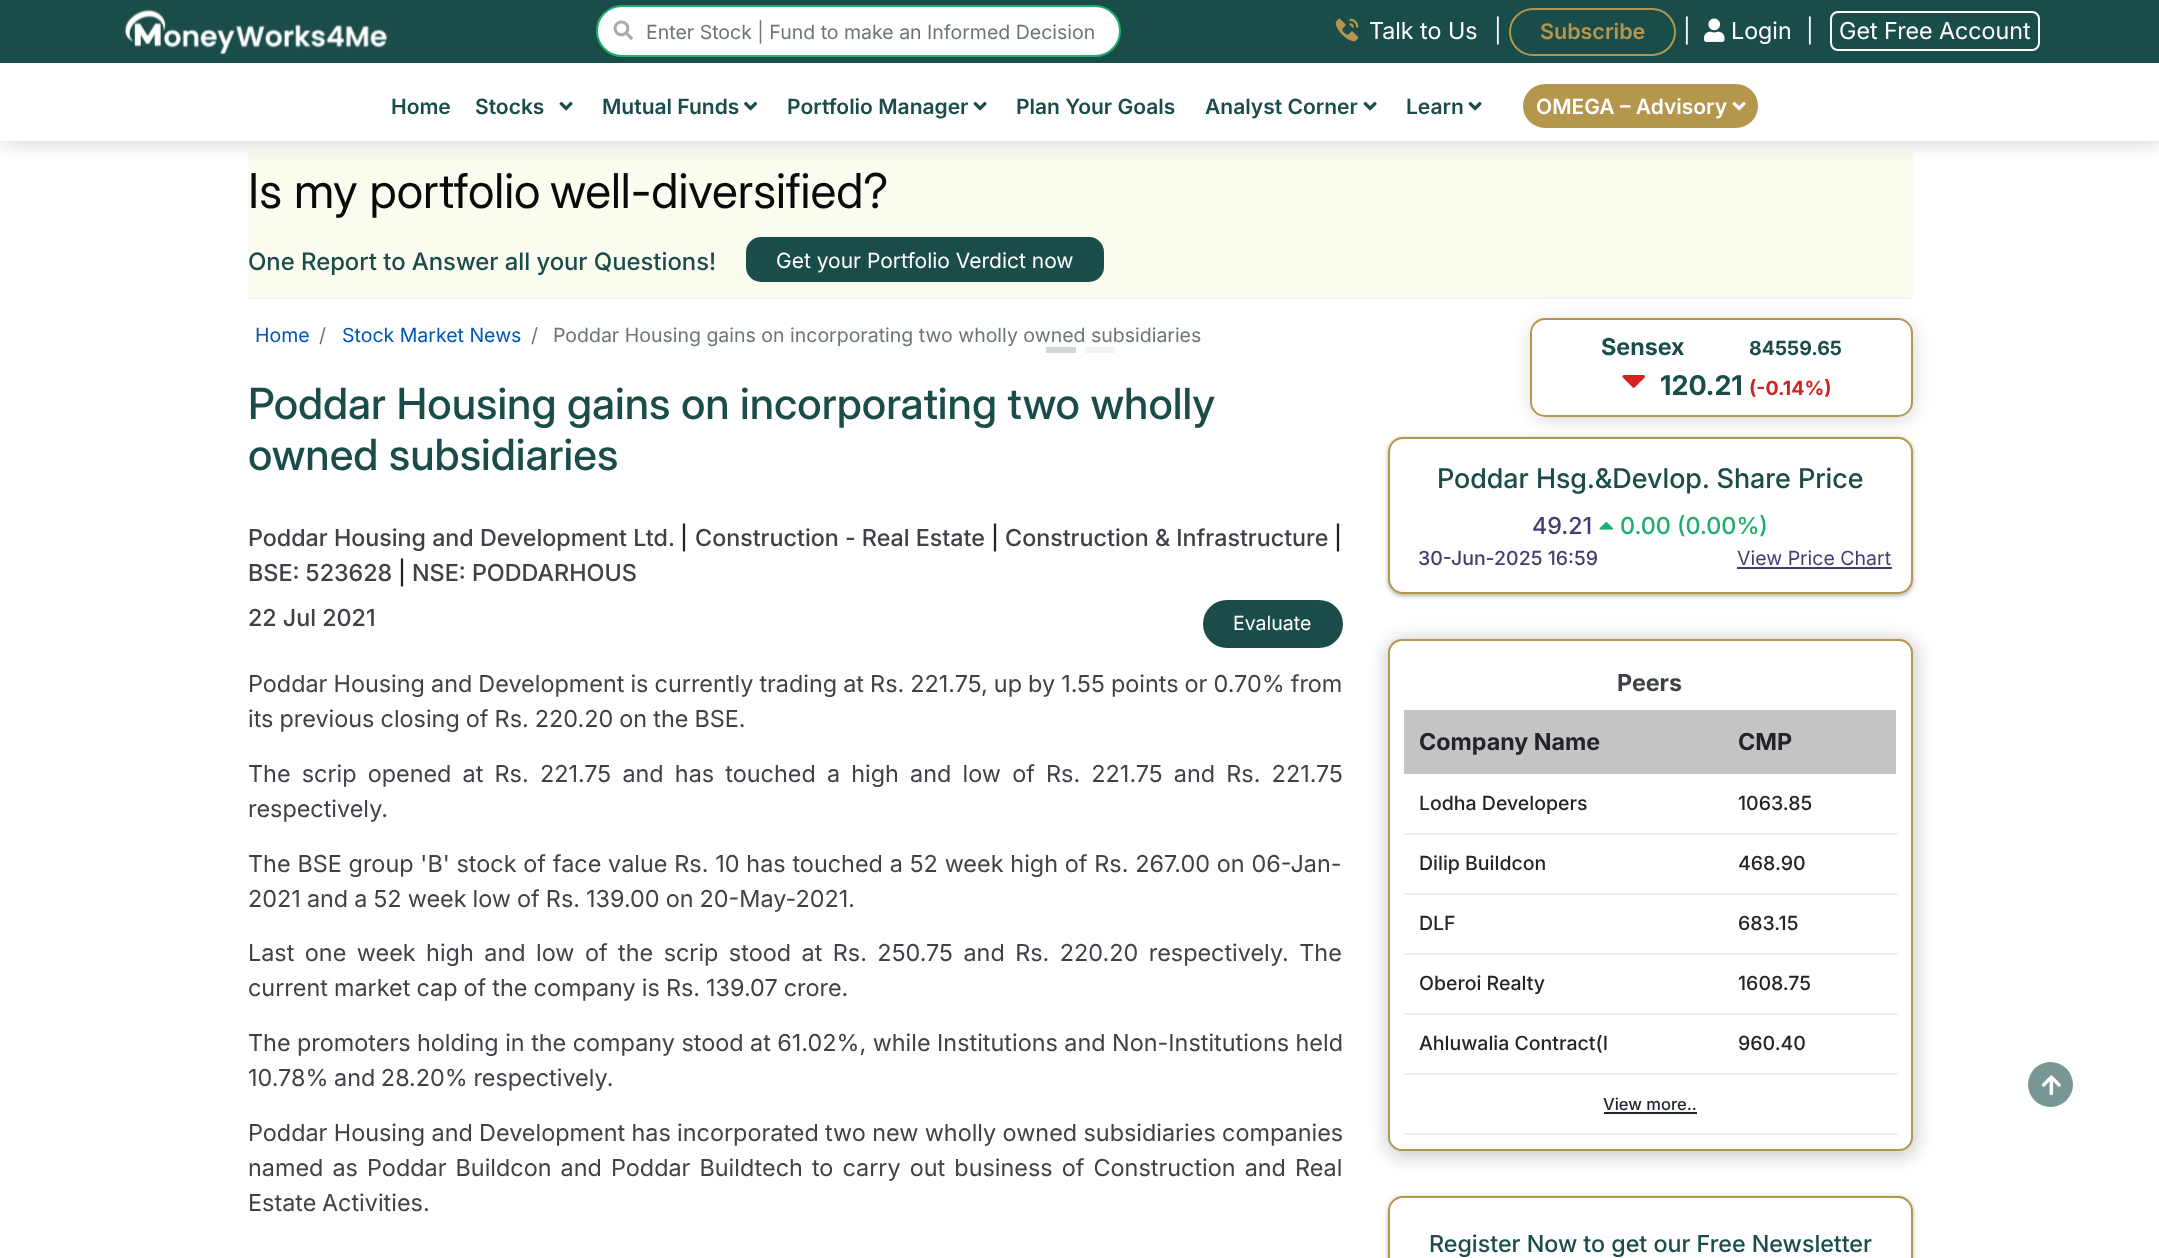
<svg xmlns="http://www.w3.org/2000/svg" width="2159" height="1258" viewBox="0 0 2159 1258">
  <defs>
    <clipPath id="clip1"><path d="M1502 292H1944V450H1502ZM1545 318H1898C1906.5 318 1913 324.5 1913 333V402C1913 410.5 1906.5 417 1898 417H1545C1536.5 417 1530 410.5 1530 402V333C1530 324.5 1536.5 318 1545 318Z" clip-rule="evenodd"/></clipPath>
  </defs>
  <rect width="100%" height="100%" fill="rgb(255,255,255)"/>
  <rect x="248" y="152" width="1665" height="145" fill="rgb(251,251,239)"/>
  <rect x="3" y="5" width="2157" height="138" fill="rgba(0,0,0,0.17)" filter="blur(10px)"/>
  <rect x="0" y="0" width="2159" height="63" fill="rgb(26,77,74)"/>
  <image x="124" y="9" width="264" height="46" href="pic1.png"/>
  <rect x="597" y="6" width="523" height="50" rx="25" fill="rgb(255,255,255)" stroke="rgb(30,175,109)" stroke-width="2"/>
  <image x="613" y="20" width="20" height="20" href="pic2.png"/>
  <text x="646" y="39" font-family="'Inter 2'" font-size="19.5" fill="rgb(108,117,125)">Enter Stock | Fund to make an Informed Decision</text>
  <image x="1335" y="18" width="24" height="24" href="pic3.png"/>
  <g font-family="'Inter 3'" font-size="23.4" fill="rgb(255,255,255)">
    <text x="1369" y="39">Talk to Us</text>
    <text x="1494" y="39">|</text>
  </g>
  <rect x="1510" y="9" width="165" height="46" rx="23" fill="none" stroke="rgb(181,150,77)" stroke-width="2"/>
  <text x="1540" y="39" font-family="Inter" font-size="21.5" font-weight="600" fill="rgb(181,150,77)">Subscribe</text>
  <text x="1683" y="39" font-family="'Inter 3'" font-size="23.4" fill="rgb(255,255,255)">|</text>
  <image x="1704" y="18" width="21" height="24" href="pic4.png"/>
  <g font-family="'Inter 3'" font-size="23.4" fill="rgb(255,255,255)">
    <text x="1731" y="39">Login</text>
    <text x="1806" y="39">|</text>
  </g>
  <rect x="1831" y="12" width="208" height="38" rx="7" fill="none" stroke="rgb(255,255,255)" stroke-width="2"/>
  <text x="1839" y="39" font-family="'Inter 3'" font-size="23.4" fill="rgb(255,255,255)">Get Free Account</text>
  <rect x="0" y="63" width="2159" height="78" fill="rgb(255,255,255)"/>
  <g font-family="Inter" font-size="21" font-weight="600" fill="rgb(26,77,74)">
    <text x="391" y="114">Home</text>
    <text x="475" y="114">Stocks</text>
  </g>
  <image x="559" y="101" width="14" height="10" href="pic5.png"/>
  <text x="602" y="114" font-family="Inter" font-size="21" font-weight="600" fill="rgb(26,77,74)">Mutual Funds</text>
  <image x="744" y="101" width="14" height="10" href="pic6.png"/>
  <text x="787" y="114" font-family="Inter" font-size="21" font-weight="600" fill="rgb(26,77,74)">Portfolio Manager</text>
  <image x="973" y="101" width="14" height="10" href="pic5.png"/>
  <g font-family="Inter" font-size="21" font-weight="600" fill="rgb(26,77,74)">
    <text x="1016" y="114">Plan Your Goals</text>
    <text x="1205" y="114">Analyst Corner</text>
  </g>
  <image x="1363" y="101" width="14" height="10" href="pic5.png"/>
  <text x="1406" y="114" font-family="Inter" font-size="21" font-weight="600" fill="rgb(26,77,74)">Learn</text>
  <image x="1468" y="101" width="14" height="10" href="pic5.png"/>
  <rect x="1523" y="84" width="235" height="44" rx="22" fill="rgb(181,150,77)"/>
  <text x="1536" y="114" font-family="Inter" font-size="21" font-weight="600" fill="rgb(255,255,255)">OMEGA – Advisory</text>
  <image x="1732" y="101" width="14" height="10" href="pic7.png"/>
  <rect x="248" y="297" width="1665" height="2" fill="rgb(247,241,241)"/>
  <g font-family="Inter" font-size="48" fill="rgb(10,10,10)">
    <text x="248" y="208">Is my portfolio</text>
    <text x="550" y="208">well-diversified?</text>
  </g>
  <text x="248" y="270" font-family="Inter" font-size="24" font-weight="500" fill="rgb(26,77,74)">One Report to Answer all your Questions!</text>
  <rect x="746" y="237" width="358" height="45" rx="15" fill="rgb(26,77,74)"/>
  <text x="776" y="268" font-family="'Inter 2'" font-size="21" fill="rgb(255,255,255)">Get your Portfolio Verdict now</text>
  <rect x="1046" y="347" width="30" height="6" fill="rgb(213,213,213)"/>
  <rect x="1085" y="347" width="30" height="6" fill="rgb(242,242,242)"/>
  <text x="255" y="342" font-family="'Inter 2'" font-size="19.5" fill="rgb(0,86,179)">Home</text>
  <text x="319" y="342" font-family="'Inter 2'" font-size="19.5" fill="rgb(108,117,125)">/</text>
  <text x="342" y="342" font-family="'Inter 2'" font-size="19.5" fill="rgb(0,86,179)">Stock Market News</text>
  <g font-family="'Inter 2'" font-size="19.5" fill="rgb(108,117,125)">
    <text x="531" y="342">/</text>
    <text x="553" y="342">Poddar Housing gains on incorporating two wholly owned subsidiaries</text>
  </g>
  <g clip-path="url(#clip1)">
    <rect x="1533" y="323" width="380" height="96" rx="14" fill="rgba(0,0,0,0.17)" filter="blur(10px)"/>
  </g>
  <rect x="1531" y="319" width="381" height="97" rx="14" fill="none" stroke="rgb(181,150,77)" stroke-width="2"/>
  <text x="1601" y="355" font-family="Inter" font-size="23.4" font-weight="bold" fill="rgb(26,77,74)">Sensex</text>
  <text x="1749" y="355" font-family="'Inter 2'" font-size="19.5" font-weight="bold" fill="rgb(26,77,74)">84559.65</text>
  <image x="1622" y="375" width="23" height="13" href="pic8.png"/>
  <text x="1660" y="395" font-family="'Inter 3'" font-size="27.25" font-weight="bold" fill="rgb(26,77,74)">120.21</text>
  <text x="1749" y="395" font-family="'Inter 2'" font-size="19.5" font-weight="bold" fill="rgb(213,33,33)">(-0.14%)</text>
  <g font-family="'Inter 2'" font-size="42.9" font-weight="500" fill="rgb(26,77,74)">
    <text>
      <tspan x="248" y="419">Poddar Housing gains on incorporating two wholly</tspan>
      <tspan x="248" y="470">owned subsidiaries</tspan>
    </text>
  </g>
  <text x="248" y="546" font-family="'Inter 3'" font-size="23.4" font-weight="500" fill="rgb(62,66,72)">Poddar Housing and Development Ltd.</text>
  <text x="680" y="546" font-family="'Inter 3'" font-size="23.4" font-weight="500" fill="rgb(33,37,41)">|</text>
  <text x="695" y="546" font-family="'Inter 3'" font-size="23.4" font-weight="500" fill="rgb(62,66,72)">Construction - Real Estate</text>
  <text x="991" y="546" font-family="'Inter 3'" font-size="23.4" font-weight="500" fill="rgb(33,37,41)">|</text>
  <text x="1005" y="546" font-family="'Inter 3'" font-size="23.4" font-weight="500" fill="rgb(62,66,72)">Construction &amp; Infrastructure</text>
  <text x="1334" y="546" font-family="'Inter 3'" font-size="23.4" font-weight="500" fill="rgb(33,37,41)">|</text>
  <text x="248" y="581" font-family="'Inter 3'" font-size="23.4" font-weight="500" fill="rgb(62,66,72)">BSE: 523628</text>
  <text x="398" y="581" font-family="'Inter 3'" font-size="23.4" font-weight="500" fill="rgb(33,37,41)">|</text>
  <g font-family="'Inter 3'" font-size="23.4" font-weight="500" fill="rgb(62,66,72)">
    <text x="412" y="581">NSE: PODDARHOUS</text>
    <text x="248" y="626">22 Jul 2021</text>
  </g>
  <rect x="1203" y="600" width="140" height="48" rx="24" fill="rgb(26,77,74)"/>
  <text x="1233" y="630" font-family="'Inter 2'" font-size="19.5" fill="rgb(255,255,255)">Evaluate</text>
  <g font-family="'Inter 2'" font-size="23.4" fill="rgb(62,66,72)">
    <text>
      <tspan x="248" y="692" word-spacing="-0.5">Poddar Housing and Development is currently trading at Rs. 221.75, up by 1.55 points or 0.70% from</tspan>
      <tspan x="248" y="727" word-spacing="-0.5">its previous closing of Rs. 220.20 on the BSE.</tspan>
    </text>
    <text>
      <tspan x="248" y="782" word-spacing="4.6">The scrip opened at Rs. 221.75 and has touched a high and low of Rs. 221.75 and Rs. 221.75</tspan>
      <tspan x="248" y="817">respectively.</tspan>
    </text>
    <text>
      <tspan x="248" y="872" word-spacing="0.25">The BSE group 'B' stock of face value Rs. 10 has touched a 52 week high of Rs. 267.00 on 06-Jan-</tspan>
      <tspan x="248" y="907" word-spacing="-0.5">2021 and a 52 week low of Rs. 139.00 on 20-May-2021.</tspan>
    </text>
    <text>
      <tspan x="248" y="961" word-spacing="3.9">Last one week high and low of the scrip stood at Rs. 250.75 and Rs. 220.20 respectively. The</tspan>
      <tspan x="248" y="996" word-spacing="-0.5">current market cap of the company is Rs. 139.07 crore.</tspan>
    </text>
    <text>
      <tspan x="248" y="1051" word-spacing="-0.1">The promoters holding in the company stood at 61.02%, while Institutions and Non-Institutions held</tspan>
      <tspan x="248" y="1086" word-spacing="-1">10.78% and 28.20% respectively.</tspan>
    </text>
    <text>
      <tspan x="248" y="1141" word-spacing="-0.25">Poddar Housing and Development has incorporated two new wholly owned subsidiaries companies</tspan>
      <tspan x="248" y="1176" word-spacing="2.5">named as Poddar Buildcon and Poddar Buildtech to carry out business of Construction and Real</tspan>
      <tspan x="248" y="1211" word-spacing="-1">Estate Activities.</tspan>
    </text>
  </g>
  <rect x="1388" y="438" width="525" height="158" rx="15" fill="rgba(0,0,0,0.3)" filter="blur(2px)"/>
  <rect x="1389" y="438" width="523" height="155" rx="14" fill="rgb(255,255,255)" stroke="rgb(181,150,77)" stroke-width="2"/>
  <text x="1437" y="488" font-family="'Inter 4'" font-size="27.25" font-weight="500" fill="rgb(26,77,74)">Poddar Hsg.&amp;Devlop. Share Price</text>
  <text x="1532" y="534" font-family="'Inter 3'" font-size="23.4" font-weight="500" fill="rgb(63,63,114)">49.21</text>
  <image x="1599" y="521" width="15" height="9" href="pic9.png"/>
  <text x="1620" y="534" font-family="'Inter 3'" font-size="23.4" font-weight="500" fill="rgb(30,175,109)">0.00 (0.00%)</text>
  <text x="1418" y="565" font-family="'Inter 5'" font-size="19.5" font-weight="500" fill="rgb(63,63,114)">30-Jun-2025 16:59</text>
  <text x="1737" y="565" font-family="'Inter 2'" font-size="19.5" fill="rgb(63,63,114)">View Price Chart</text>
  <rect x="1737" y="567" width="155" height="2" fill="rgb(63,63,114)"/>
  <rect x="1386" y="639" width="531" height="518" rx="17" fill="rgb(205,205,205)" filter="blur(9px)"/>
  <rect x="1389" y="640" width="523" height="510" rx="13" fill="rgb(255,255,255)" stroke="rgb(181,150,77)" stroke-width="2"/>
  <text x="1617" y="691" font-family="Inter" font-size="23.4" font-weight="bold" fill="rgb(62,66,72)">Peers</text>
  <rect x="1404" y="710" width="492" height="64" fill="rgb(196,196,196)"/>
  <g font-family="Inter" font-size="23.4" font-weight="bold" fill="rgb(33,37,41)">
    <text x="1419" y="750">Company Name</text>
    <text x="1738" y="750">CMP</text>
  </g>
  <text x="1419" y="810" font-family="'Inter 5'" font-size="19.5" font-weight="500" fill="rgb(33,37,41)">Lodha Developers</text>
  <rect x="1404" y="833" width="494" height="2" fill="rgb(239,239,239)"/>
  <g font-family="'Inter 5'" font-size="19.5" font-weight="500" fill="rgb(33,37,41)">
    <text x="1738" y="810">1063.85</text>
    <text x="1419" y="870">Dilip Buildcon</text>
  </g>
  <rect x="1404" y="893" width="494" height="2" fill="rgb(239,239,239)"/>
  <g font-family="'Inter 5'" font-size="19.5" font-weight="500" fill="rgb(33,37,41)">
    <text x="1738" y="870">468.90</text>
    <text x="1419" y="930">DLF</text>
  </g>
  <rect x="1404" y="953" width="494" height="2" fill="rgb(239,239,239)"/>
  <g font-family="'Inter 5'" font-size="19.5" font-weight="500" fill="rgb(33,37,41)">
    <text x="1738" y="930">683.15</text>
    <text x="1419" y="990">Oberoi Realty</text>
  </g>
  <rect x="1404" y="1013" width="494" height="2" fill="rgb(239,239,239)"/>
  <g font-family="'Inter 5'" font-size="19.5" font-weight="500" fill="rgb(33,37,41)">
    <text x="1738" y="990">1608.75</text>
    <text x="1419" y="1050">Ahluwalia Contract(I</text>
  </g>
  <rect x="1404" y="1073" width="494" height="2" fill="rgb(239,239,239)"/>
  <text x="1738" y="1050" font-family="'Inter 5'" font-size="19.5" font-weight="500" fill="rgb(33,37,41)">960.40</text>
  <rect x="1404" y="1133" width="494" height="2" fill="rgb(239,239,239)"/>
  <text x="1603" y="1110" font-family="'Inter 5'" font-size="16.5" font-weight="500" fill="rgb(29,36,51)">View more..</text>
  <rect x="1604" y="1112" width="93" height="2" fill="rgb(33,37,41)"/>
  <rect x="1388" y="1197" width="525" height="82" rx="15" fill="rgba(0,0,0,0.3)" filter="blur(2px)"/>
  <rect x="1389" y="1197" width="523" height="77" rx="14" fill="rgb(255,255,255)" stroke="rgb(181,150,77)" stroke-width="2"/>
  <text x="1429" y="1252" font-family="'Inter 3'" font-size="23.4" font-weight="500" fill="rgb(26,77,74)">Register Now to get our Free Newsletter</text>
  <circle cx="2050.5" cy="1084.5" r="22.5" fill="rgb(120,150,148)"/>
  <image x="2041" y="1075" width="20" height="20" href="pic10.png"/>
</svg>
